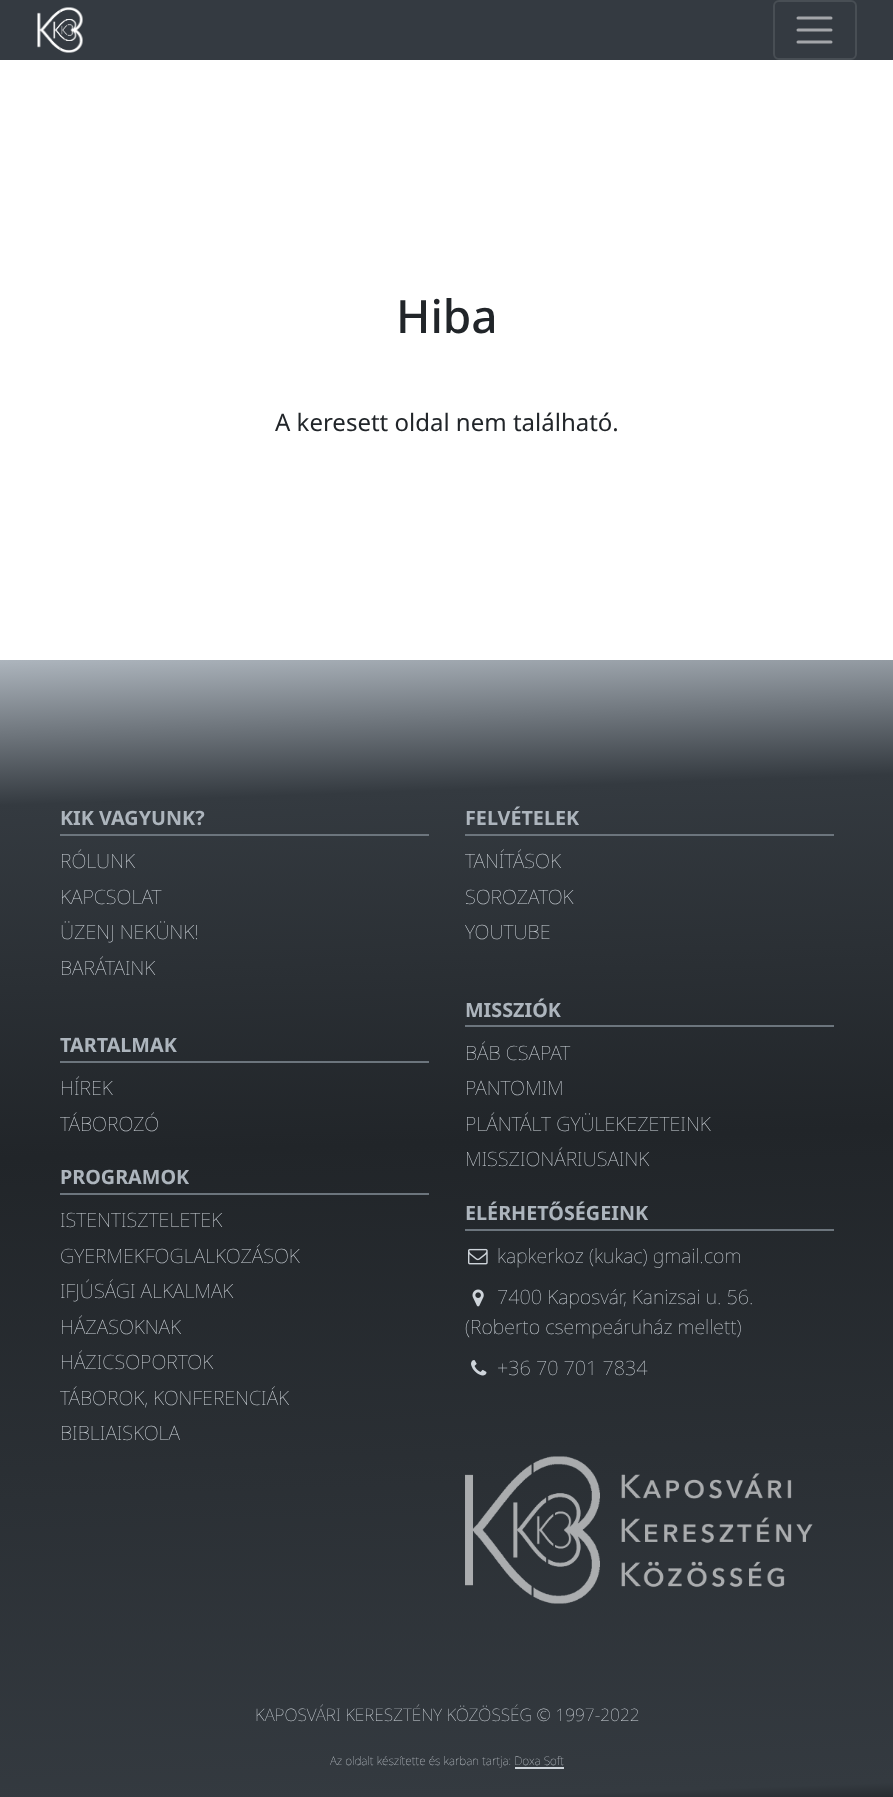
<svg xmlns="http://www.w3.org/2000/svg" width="893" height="1797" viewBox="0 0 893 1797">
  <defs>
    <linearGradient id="g1" gradientUnits="userSpaceOnUse" x1="426" y1="645" x2="468" y2="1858"><stop offset="0" stop-color="rgb(173,181,189)"/><stop offset="0.12" stop-color="rgb(52,58,64)"/><stop offset="0.41" stop-color="rgb(33,37,41)"/><stop offset="0.95" stop-color="rgb(52,58,64)"/><stop offset="1" stop-color="rgb(0,0,0)"/></linearGradient>
  </defs>
  <rect width="100%" height="100%" fill="rgb(255,255,255)"/>
  <rect x="0" y="0" width="893" height="60" fill="rgb(52,58,65)"/>
  <image x="37" y="7" width="46" height="46" href="pic1.png"/>
  <rect x="774" y="1" width="82" height="58" rx="5" fill="none" stroke="rgb(72,78,84)" stroke-width="2"/>
  <path d="M798 18H831M798 30H831M798 42H831" fill="none" stroke="rgb(164,166,170)" stroke-width="3" stroke-linecap="round"/>
  <text x="396" y="333" font-family="Noto Sans" font-size="46" font-weight="500" fill="rgb(33,37,41)">Hiba</text>
  <text x="275" y="431" font-family="Noto Sans" font-size="24" fill="rgb(33,37,41)">A keresett oldal nem található.</text>
  <rect x="0" y="660" width="893" height="1137" fill="url(#g1)"/>
  <rect x="60" y="834" width="369" height="2" fill="rgb(108,117,125)"/>
  <text x="60" y="825" font-family="Noto Sans" font-size="19.75" font-weight="bold" fill="rgb(173,181,189)">KIK VAGYUNK?</text>
  <g font-family="Noto Sans" font-size="19.75" font-weight="100" fill="rgb(206,212,218)">
    <text>
      <tspan x="60" y="868">RÓLUNK</tspan>
      <tspan x="60" y="904">KAPCSOLAT</tspan>
      <tspan x="60" y="939">ÜZENJ NEKÜNK!</tspan>
      <tspan x="60" y="975">BARÁTAINK</tspan>
    </text>
  </g>
  <rect x="60" y="1061" width="369" height="2" fill="rgb(108,117,125)"/>
  <text x="60" y="1052" font-family="Noto Sans" font-size="19.75" font-weight="bold" fill="rgb(173,181,189)">TARTALMAK</text>
  <g font-family="Noto Sans" font-size="19.75" font-weight="100" fill="rgb(206,212,218)">
    <text>
      <tspan x="60" y="1095">HÍREK</tspan>
      <tspan x="60" y="1131">TÁBOROZÓ</tspan>
    </text>
  </g>
  <rect x="60" y="1193" width="369" height="2" fill="rgb(108,117,125)"/>
  <text x="60" y="1184" font-family="Noto Sans" font-size="19.75" font-weight="bold" fill="rgb(173,181,189)">PROGRAMOK</text>
  <g font-family="Noto Sans" font-size="19.75" font-weight="100" fill="rgb(206,212,218)">
    <text>
      <tspan x="60" y="1227">ISTENTISZTELETEK</tspan>
      <tspan x="60" y="1263">GYERMEKFOGLALKOZÁSOK</tspan>
      <tspan x="60" y="1298">IFJÚSÁGI ALKALMAK</tspan>
      <tspan x="60" y="1334">HÁZASOKNAK</tspan>
      <tspan x="60" y="1369">HÁZICSOPORTOK</tspan>
      <tspan x="60" y="1405">TÁBOROK, KONFERENCIÁK</tspan>
      <tspan x="60" y="1440">BIBLIAISKOLA</tspan>
    </text>
  </g>
  <rect x="465" y="834" width="369" height="2" fill="rgb(108,117,125)"/>
  <text x="465" y="825" font-family="Noto Sans" font-size="19.75" font-weight="bold" fill="rgb(173,181,189)">FELVÉTELEK</text>
  <g font-family="Noto Sans" font-size="19.75" font-weight="100" fill="rgb(206,212,218)">
    <text>
      <tspan x="465" y="868">TANÍTÁSOK</tspan>
      <tspan x="465" y="904">SOROZATOK</tspan>
      <tspan x="465" y="939">YOUTUBE</tspan>
    </text>
  </g>
  <rect x="465" y="1025" width="369" height="2" fill="rgb(108,117,125)"/>
  <text x="465" y="1017" font-family="Noto Sans" font-size="19.75" font-weight="bold" fill="rgb(173,181,189)">MISSZIÓK</text>
  <g font-family="Noto Sans" font-size="19.75" font-weight="100" fill="rgb(206,212,218)">
    <text>
      <tspan x="465" y="1060">BÁB CSAPAT</tspan>
      <tspan x="465" y="1095">PANTOMIM</tspan>
      <tspan x="465" y="1131">PLÁNTÁLT GYÜLEKEZETEINK</tspan>
      <tspan x="465" y="1166">MISSZIONÁRIUSAINK</tspan>
    </text>
  </g>
  <rect x="465" y="1229" width="369" height="2" fill="rgb(108,117,125)"/>
  <text x="465" y="1220" font-family="Noto Sans" font-size="19.75" font-weight="bold" fill="rgb(173,181,189)">ELÉRHETŐSÉGEINK</text>
  <image x="468" y="1248" width="20" height="17" href="pic2.png"/>
  <text x="497" y="1263" font-family="Noto Sans" font-size="19.75" font-weight="100" fill="rgb(206,212,218)">kapkerkoz (kukac) gmail.com</text>
  <image x="472" y="1289" width="12" height="18" href="pic3.png"/>
  <g font-family="Noto Sans" font-size="19.75" font-weight="100" fill="rgb(206,212,218)">
    <text x="497" y="1304">7400 Kaposvár, Kanizsai u. 56.</text>
    <text x="465" y="1334">(Roberto csempeáruház mellett)</text>
  </g>
  <image x="471" y="1360" width="16" height="16" href="pic4.png"/>
  <text x="497" y="1375" font-family="Noto Sans" font-size="19.75" font-weight="100" fill="rgb(206,212,218)">+36 70 701 7834</text>
  <image x="465" y="1456" width="348" height="148" href="pic5.png"/>
  <text x="255" y="1721" font-family="Noto Sans" font-size="17.25" font-weight="100" fill="rgb(206,212,218)">KAPOSVÁRI KERESZTÉNY KÖZÖSSÉG © 1997-2022</text>
  <text x="330" y="1765" font-family="Noto Sans" font-size="11.8" font-weight="100" fill="rgb(206,212,218)">Az oldalt készítette és karban tartja: Doxa Soft</text>
  <rect x="515" y="1767" width="49" height="2" fill="rgb(206,212,218)"/>
</svg>
